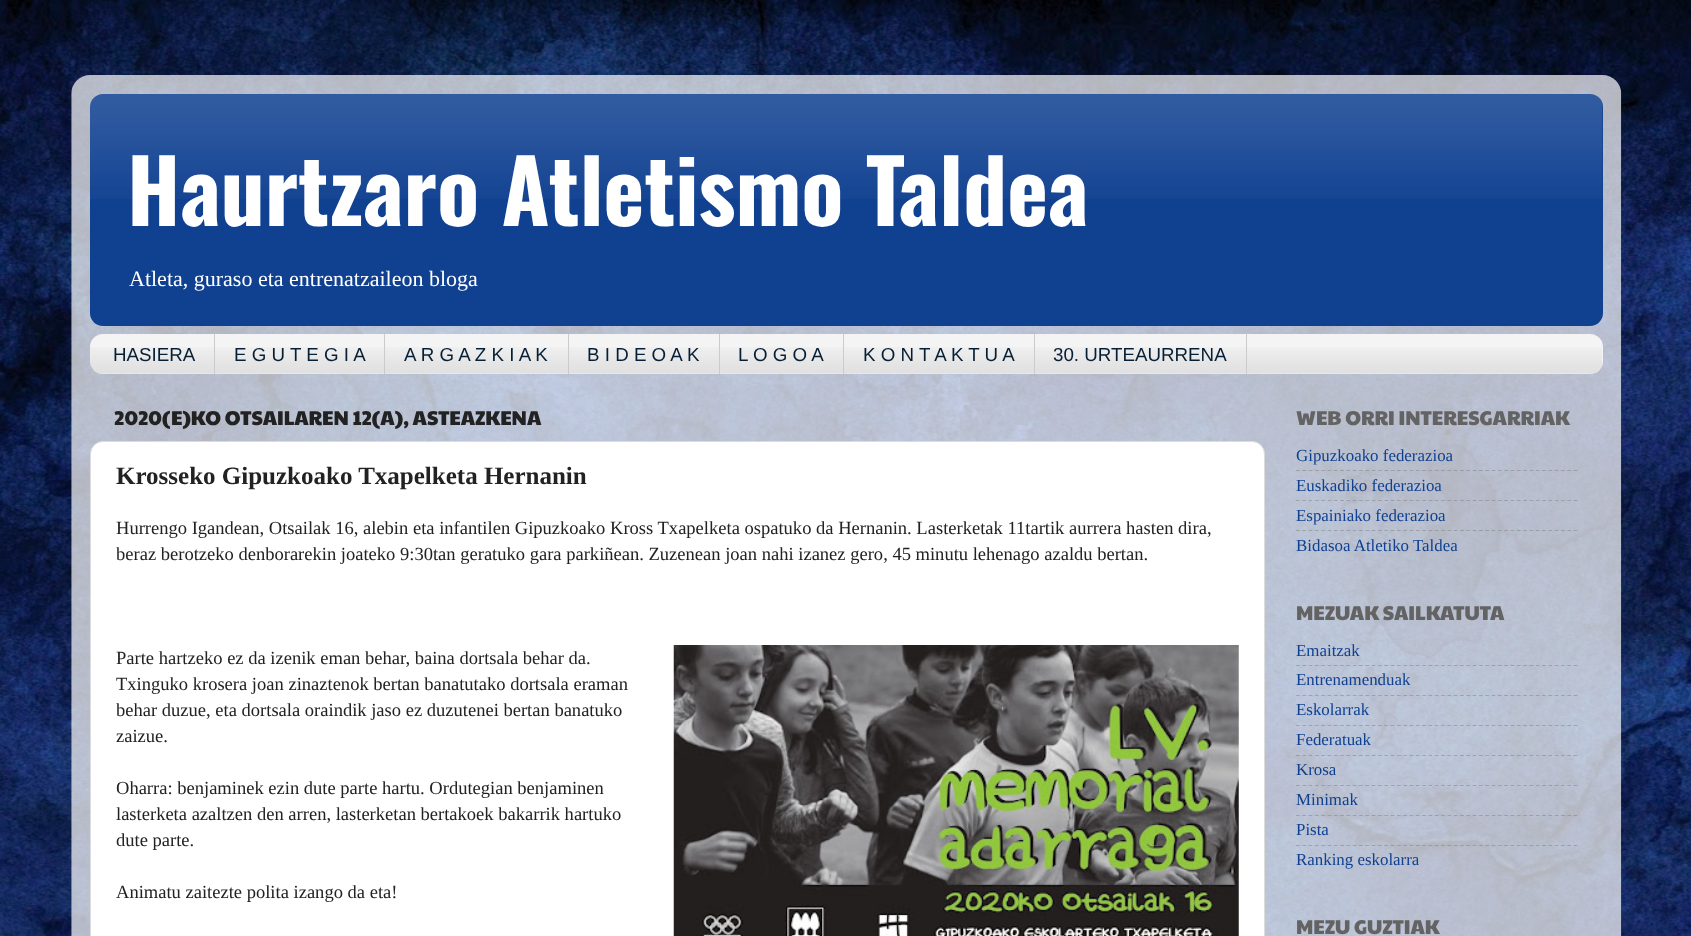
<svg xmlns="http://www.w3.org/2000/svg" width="1691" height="936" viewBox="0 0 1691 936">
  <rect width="100%" height="100%" fill="rgb(255,255,255)"/>
  <image x="0" y="0" width="1691" height="936" href="pic1.png"/>
  <image x="71" y="75" width="1551" height="861" href="pic2.png"/>
  <rect x="90" y="94" width="1513" height="232" rx="13" fill="rgb(16,65,145)"/>
  <image x="90" y="94" width="1513" height="105" href="pic3.png"/>
  <text x="127" y="226" font-family="Oswald" font-size="87.5" font-weight="bold" fill="rgb(255,255,255)">Haurtzaro Atletismo Taldea</text>
  <text x="129" y="286" font-family="Liberation Serif" font-size="22" fill="rgb(255,255,255)">Atleta, guraso eta entrenatzaileon bloga</text>
  <rect x="90" y="334" width="1513" height="40" rx="13" fill="rgb(244,244,244)"/>
  <image x="90" y="347" width="1512" height="27" href="pic4.png"/>
  <rect x="214" y="334" width="1" height="40" fill="rgb(203,203,203)"/>
  <text x="113" y="361" font-family="Liberation Sans" font-size="18.75" fill="rgb(7,31,53)">HASIERA</text>
  <rect x="384" y="334" width="1" height="40" fill="rgb(203,203,203)"/>
  <text x="234" y="361" font-family="Liberation Sans" font-size="18.75" fill="rgb(7,31,53)">E G U T E G I A</text>
  <rect x="568" y="334" width="1" height="40" fill="rgb(203,203,203)"/>
  <text x="404" y="361" font-family="Liberation Sans" font-size="18.75" fill="rgb(7,31,53)">A R G A Z K I A K</text>
  <rect x="719" y="334" width="1" height="40" fill="rgb(203,203,203)"/>
  <text x="587" y="361" font-family="Liberation Sans" font-size="18.75" fill="rgb(7,31,53)">B I D E O A K</text>
  <rect x="843" y="334" width="1" height="40" fill="rgb(203,203,203)"/>
  <text x="738" y="361" font-family="Liberation Sans" font-size="18.75" fill="rgb(7,31,53)">L O G O A</text>
  <rect x="1034" y="334" width="1" height="40" fill="rgb(203,203,203)"/>
  <text x="863" y="361" font-family="Liberation Sans" font-size="18.75" fill="rgb(7,31,53)">K O N T A K T U A</text>
  <rect x="1246" y="334" width="1" height="40" fill="rgb(203,203,203)"/>
  <text x="1053" y="361" font-family="Liberation Sans" font-size="18.75" fill="rgb(7,31,53)">30. URTEAURRENA</text>
  <text x="114" y="425" font-family="Paytone One" font-size="20" fill="rgb(34,34,34)">2020(E)KO OTSAILAREN 12(A), ASTEAZKENA</text>
  <rect x="90.5" y="441.5" width="1174" height="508" rx="12.5" fill="rgb(255,255,255)" stroke="rgb(220,220,220)"/>
  <text x="116" y="484" font-family="Liberation Serif" font-size="25" font-weight="bold" fill="rgb(34,34,34)">Krosseko Gipuzkoako Txapelketa Hernanin</text>
  <g font-family="Liberation Serif" font-size="18.55" fill="rgb(34,34,34)">
    <text>
      <tspan x="116" y="534">Hurrengo Igandean, Otsailak 16, alebin eta infantilen Gipuzkoako Kross Txapelketa ospatuko da Hernanin. Lasterketak 11tartik aurrera hasten dira,</tspan>
      <tspan x="116" y="560">beraz berotzeko denborarekin joateko 9:30tan geratuko gara parkiñean. Zuzenean joan nahi izanez gero, 45 minutu lehenago azaldu bertan.</tspan>
    </text>
    <text x="116" y="664">Parte hartzeko ez da izenik eman behar, baina dortsala behar da.</text>
  </g>
  <image x="673" y="645" width="566" height="291" href="pic5.png"/>
  <g font-family="Liberation Serif" font-size="18.55" fill="rgb(34,34,34)">
    <text>
      <tspan x="116" y="690">Txinguko krosera joan zinaztenok bertan banatutako dortsala eraman</tspan>
      <tspan x="116" y="716">behar duzue, eta dortsala oraindik jaso ez duzutenei bertan banatuko</tspan>
      <tspan x="116" y="742">zaizue.</tspan>
    </text>
    <text>
      <tspan x="116" y="794">Oharra: benjaminek ezin dute parte hartu. Ordutegian benjaminen</tspan>
      <tspan x="116" y="820">lasterketa azaltzen den arren, lasterketan bertakoek bakarrik hartuko</tspan>
      <tspan x="116" y="846">dute parte.</tspan>
    </text>
    <text x="116" y="898">Animatu zaitezte polita izango da eta!</text>
  </g>
  <text x="1296" y="425" font-family="Paytone One" font-size="20" fill="rgb(99,99,99)">WEB ORRI INTERESGARRIAK</text>
  <text x="1296" y="461" font-family="Liberation Serif" font-size="16.9" fill="rgb(16,65,145)">Gipuzkoako federazioa</text>
  <path d="M1296 470.5H1577.5" fill="none" stroke="rgba(128,128,128,0.5)" stroke-width="1.2" stroke-dasharray="3.75 2.56"/>
  <text x="1296" y="491" font-family="Liberation Serif" font-size="16.9" fill="rgb(16,65,145)">Euskadiko federazioa</text>
  <path d="M1296 500.5H1577.5" fill="none" stroke="rgba(128,128,128,0.5)" stroke-width="1.2" stroke-dasharray="3.75 2.56"/>
  <text x="1296" y="521" font-family="Liberation Serif" font-size="16.9" fill="rgb(16,65,145)">Espainiako federazioa</text>
  <path d="M1296 530.5H1577.5" fill="none" stroke="rgba(128,128,128,0.5)" stroke-width="1.2" stroke-dasharray="3.75 2.56"/>
  <text x="1296" y="551" font-family="Liberation Serif" font-size="16.9" fill="rgb(16,65,145)">Bidasoa Atletiko Taldea</text>
  <text x="1296" y="620" font-family="Paytone One" font-size="20" fill="rgb(99,99,99)">MEZUAK SAILKATUTA</text>
  <text x="1296" y="656" font-family="Liberation Serif" font-size="16.9" fill="rgb(16,65,145)">Emaitzak</text>
  <path d="M1296 665.5H1577.5" fill="none" stroke="rgba(128,128,128,0.5)" stroke-width="1.2" stroke-dasharray="3.75 2.56"/>
  <text x="1296" y="685" font-family="Liberation Serif" font-size="16.9" fill="rgb(16,65,145)">Entrenamenduak</text>
  <path d="M1296 695.5H1577.5" fill="none" stroke="rgba(128,128,128,0.5)" stroke-width="1.2" stroke-dasharray="3.75 2.56"/>
  <text x="1296" y="715" font-family="Liberation Serif" font-size="16.9" fill="rgb(16,65,145)">Eskolarrak</text>
  <path d="M1296 725.5H1577.5" fill="none" stroke="rgba(128,128,128,0.5)" stroke-width="1.2" stroke-dasharray="3.75 2.56"/>
  <text x="1296" y="745" font-family="Liberation Serif" font-size="16.9" fill="rgb(16,65,145)">Federatuak</text>
  <path d="M1296 755.5H1577.5" fill="none" stroke="rgba(128,128,128,0.5)" stroke-width="1.2" stroke-dasharray="3.75 2.56"/>
  <text x="1296" y="775" font-family="Liberation Serif" font-size="16.9" fill="rgb(16,65,145)">Krosa</text>
  <path d="M1296 785.5H1577.5" fill="none" stroke="rgba(128,128,128,0.5)" stroke-width="1.2" stroke-dasharray="3.75 2.56"/>
  <text x="1296" y="805" font-family="Liberation Serif" font-size="16.9" fill="rgb(16,65,145)">Minimak</text>
  <path d="M1296 815.5H1577.5" fill="none" stroke="rgba(128,128,128,0.5)" stroke-width="1.2" stroke-dasharray="3.75 2.56"/>
  <text x="1296" y="835" font-family="Liberation Serif" font-size="16.9" fill="rgb(16,65,145)">Pista</text>
  <path d="M1296 845.5H1577.5" fill="none" stroke="rgba(128,128,128,0.5)" stroke-width="1.2" stroke-dasharray="3.75 2.56"/>
  <text x="1296" y="865" font-family="Liberation Serif" font-size="16.9" fill="rgb(16,65,145)">Ranking eskolarra</text>
  <text x="1296" y="934" font-family="Paytone One" font-size="20" fill="rgb(99,99,99)">MEZU GUZTIAK</text>
</svg>
